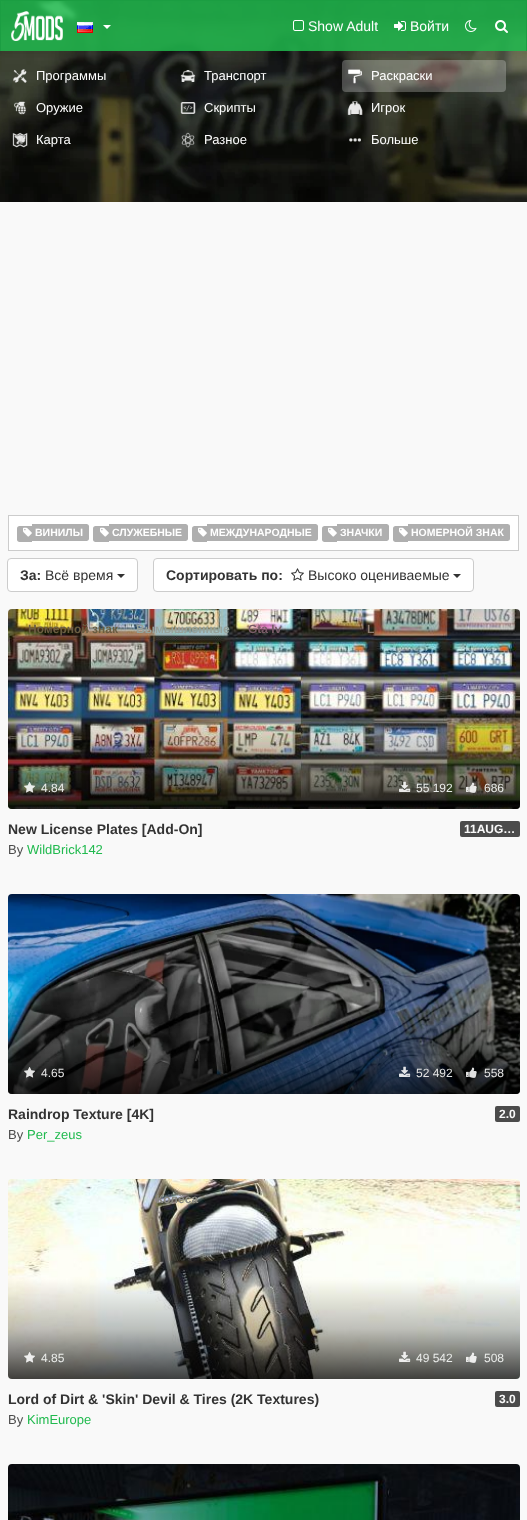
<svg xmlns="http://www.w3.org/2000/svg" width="527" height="1520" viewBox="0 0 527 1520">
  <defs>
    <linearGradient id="g1" gradientUnits="userSpaceOnUse" x1="264" y1="609" x2="264" y2="809"><stop offset="0.5" stop-color="rgb(0,0,0)" stop-opacity="0"/><stop offset="0.75" stop-color="rgb(0,0,0)" stop-opacity="0.25"/><stop offset="1" stop-color="rgb(0,0,0)" stop-opacity="0.75"/></linearGradient>
    <linearGradient id="g2" gradientUnits="userSpaceOnUse" x1="264" y1="894" x2="264" y2="1094"><stop offset="0.5" stop-color="rgb(0,0,0)" stop-opacity="0"/><stop offset="0.75" stop-color="rgb(0,0,0)" stop-opacity="0.25"/><stop offset="1" stop-color="rgb(0,0,0)" stop-opacity="0.75"/></linearGradient>
    <linearGradient id="g3" gradientUnits="userSpaceOnUse" x1="264" y1="1179" x2="264" y2="1379"><stop offset="0.5" stop-color="rgb(0,0,0)" stop-opacity="0"/><stop offset="0.75" stop-color="rgb(0,0,0)" stop-opacity="0.25"/><stop offset="1" stop-color="rgb(0,0,0)" stop-opacity="0.75"/></linearGradient>
  </defs>
  <rect width="100%" height="100%" fill="rgb(249,249,249)"/>
  <image x="0" y="1" width="527" height="201" href="pic7.png"/>
  <rect x="1" y="1" width="525" height="50" fill="rgba(32,186,78,0.85)"/>
  <rect x="0" y="0" width="527" height="1" fill="rgb(27,158,66)"/>
  <rect x="526" y="0" width="1" height="51" fill="rgb(27,158,66)"/>
  <rect x="0" y="0" width="1" height="51" fill="rgb(27,158,66)"/>
  <image x="11" y="11" width="52" height="30" href="pic1.png"/>
  <image x="77" y="22" width="16" height="11" href="pic2.png"/>
  <path d="M103 25H111L107 29Z" fill="rgb(255,255,255)"/>
  <image x="293" y="20" width="11" height="11" href="pic3.png"/>
  <text x="308" y="31" font-family="Liberation Sans" font-size="14" fill="rgb(255,255,255)">Show Adult</text>
  <image x="394" y="21" width="12" height="10" href="pic4.png"/>
  <text x="410" y="31" font-family="Liberation Sans" font-size="14" fill="rgb(255,255,255)">Войти</text>
  <image x="465" y="20" width="12" height="12" href="pic5.png"/>
  <image x="495" y="20" width="13" height="13" href="pic6.png"/>
  <image x="13" y="69" width="14" height="14" href="pic8.png"/>
  <text x="36" y="80" font-family="Liberation Sans" font-size="13" fill="rgb(255,255,255)">Программы</text>
  <image x="180" y="70" width="16" height="12" href="pic9.png"/>
  <text x="204" y="80" font-family="Liberation Sans" font-size="13" fill="rgb(255,255,255)">Транспорт</text>
  <rect x="342" y="60" width="164" height="32" rx="4" fill="rgba(255,255,255,0.25)"/>
  <image x="348" y="69" width="14" height="15" href="pic10.png"/>
  <text x="371" y="80" font-family="Liberation Sans" font-size="13" fill="rgb(255,255,255)">Раскраски</text>
  <image x="14" y="101" width="12" height="14" href="pic11.png"/>
  <text x="36" y="112" font-family="Liberation Sans" font-size="13" fill="rgb(255,255,255)">Оружие</text>
  <image x="180" y="102" width="16" height="12" href="pic12.png"/>
  <text x="204" y="112" font-family="Liberation Sans" font-size="13" fill="rgb(255,255,255)">Скрипты</text>
  <image x="347" y="101" width="16" height="14" href="pic13.png"/>
  <text x="371" y="112" font-family="Liberation Sans" font-size="13" fill="rgb(255,255,255)">Игрок</text>
  <image x="12" y="132" width="16" height="16" href="pic14.png"/>
  <text x="36" y="144" font-family="Liberation Sans" font-size="13" fill="rgb(255,255,255)">Карта</text>
  <image x="181" y="132" width="14" height="16" href="pic15.png"/>
  <text x="204" y="144" font-family="Liberation Sans" font-size="13" fill="rgb(255,255,255)">Разное</text>
  <image x="349" y="138" width="12" height="4" href="pic16.png"/>
  <text x="371" y="144" font-family="Liberation Sans" font-size="13" fill="rgb(255,255,255)">Больше</text>
  <rect x="8.5" y="515.5" width="510" height="35" fill="rgb(255,255,255)" stroke="rgb(204,204,204)"/>
  <path d="M19.5 526H32V542H19.5C18 542 17 541 17 539.5V528.5C17 527 18 526 19.5 526Z" fill="rgb(175,175,175)"/>
  <path d="M32 524H86.5C88 524 89 525 89 526.5V538.5C89 540 88 541 86.5 541H32Z" fill="rgb(175,175,175)"/>
  <image x="23" y="527" width="9" height="10" href="pic17.png"/>
  <text x="35" y="536" font-family="Liberation Sans" font-size="10.5" font-weight="bold" fill="rgb(255,255,255)">ВИНИЛЫ</text>
  <path d="M95.5 526H109V542H95.5C94 542 93 541 93 539.5V528.5C93 527 94 526 95.5 526Z" fill="rgb(175,175,175)"/>
  <path d="M109 524H185.5C187 524 188 525 188 526.5V538.5C188 540 187 541 185.5 541H109Z" fill="rgb(175,175,175)"/>
  <image x="100" y="527" width="9" height="10" href="pic17.png"/>
  <text x="112" y="536" font-family="Liberation Sans" font-size="10.5" font-weight="bold" fill="rgb(255,255,255)">СЛУЖЕБНЫЕ</text>
  <path d="M194.5 526H207V542H194.5C193 542 192 541 192 539.5V528.5C192 527 193 526 194.5 526Z" fill="rgb(175,175,175)"/>
  <path d="M207 524H315.5C317 524 318 525 318 526.5V538.5C318 540 317 541 315.5 541H207Z" fill="rgb(175,175,175)"/>
  <image x="198" y="527" width="9" height="10" href="pic17.png"/>
  <text x="210" y="536" font-family="Liberation Sans" font-size="10.5" font-weight="bold" fill="rgb(255,255,255)">МЕЖДУНАРОДНЫЕ</text>
  <path d="M324.5 526H337V542H324.5C323 542 322 541 322 539.5V528.5C322 527 323 526 324.5 526Z" fill="rgb(175,175,175)"/>
  <path d="M337 524H386.5C388 524 389 525 389 526.5V538.5C389 540 388 541 386.5 541H337Z" fill="rgb(175,175,175)"/>
  <image x="328" y="527" width="9" height="10" href="pic17.png"/>
  <text x="340" y="536" font-family="Liberation Sans" font-size="10.5" font-weight="bold" fill="rgb(255,255,255)">ЗНАЧКИ</text>
  <path d="M395.5 526H408V542H395.5C394 542 393 541 393 539.5V528.5C393 527 394 526 395.5 526Z" fill="rgb(175,175,175)"/>
  <path d="M408 524H507.5C509 524 510 525 510 526.5V538.5C510 540 509 541 507.5 541H408Z" fill="rgb(175,175,175)"/>
  <image x="399" y="527" width="9" height="10" href="pic17.png"/>
  <text x="411" y="536" font-family="Liberation Sans" font-size="10.5" font-weight="bold" fill="rgb(255,255,255)">НОМЕРНОЙ ЗНАК</text>
  <rect x="7.5" y="558.5" width="130" height="33" rx="3.5" fill="rgb(255,255,255)" stroke="rgb(204,204,204)"/>
  <text x="20" y="580" font-family="Liberation Sans" font-size="14" font-weight="bold" fill="rgb(51,51,51)">За:</text>
  <text x="45" y="580" font-family="Liberation Sans" font-size="14" fill="rgb(51,51,51)">Всё время</text>
  <path d="M117 574H125L121 578Z" fill="rgb(51,51,51)"/>
  <rect x="153.5" y="558.5" width="320" height="33" rx="3.5" fill="rgb(255,255,255)" stroke="rgb(204,204,204)"/>
  <text x="166" y="580" font-family="Liberation Sans" font-size="14" font-weight="bold" fill="rgb(51,51,51)">Сортировать по:</text>
  <image x="291" y="568" width="13" height="13" href="pic18.png"/>
  <text x="308" y="580" font-family="Liberation Sans" font-size="14" fill="rgb(51,51,51)">Высоко оцениваемые</text>
  <path d="M453 574H461L457 578Z" fill="rgb(51,51,51)"/>
  <image x="8" y="609" width="512" height="200" href="pic19.png"/>
  <rect x="8" y="609" width="512" height="200" rx="4" fill="url(#g1)"/>
  <text x="28" y="633" font-family="Liberation Sans" font-size="12" font-weight="bold" fill="rgb(106,93,65)">Номерной знак</text>
  <text x="136" y="633" font-family="Liberation Sans" font-size="12" font-weight="bold" fill="rgb(151,163,155)">Вымышленные</text>
  <text x="248" y="633" font-family="Liberation Sans" font-size="12" font-weight="bold" fill="rgb(121,92,104)">Gta Iv</text>
  <text x="367" y="633" font-family="Liberation Sans" font-size="12" font-weight="bold" fill="rgb(139,123,111)">L</text>
  <image x="24" y="782" width="11" height="11" href="pic20.png"/>
  <text x="41" y="792" font-family="Liberation Sans" font-size="12" fill="rgb(234,236,234)">4.84</text>
  <image x="399" y="781" width="12" height="11" href="pic21.png"/>
  <text x="416" y="792" font-family="Liberation Sans" font-size="12" fill="rgb(234,236,234)">55 192</text>
  <image x="466" y="782" width="11" height="11" href="pic22.png"/>
  <text x="484" y="792" font-family="Liberation Sans" font-size="12" fill="rgb(234,236,234)">686</text>
  <text x="8" y="834" font-family="Liberation Sans" font-size="14" font-weight="bold" fill="rgb(51,51,51)">New License Plates [Add-On]</text>
  <rect x="460" y="821" width="60" height="16" rx="2" fill="rgb(75,75,75)"/>
  <text x="464" y="833" font-family="Liberation Sans" font-size="12" font-weight="bold" fill="rgb(249,249,249)">11AUG…</text>
  <text x="8" y="854" font-family="Liberation Sans" font-size="13" fill="rgb(75,75,75)">By</text>
  <text x="27" y="854" font-family="Liberation Sans" font-size="13" fill="rgb(32,186,78)">WildBrick142</text>
  <image x="8" y="894" width="512" height="200" href="pic23.png"/>
  <rect x="8" y="894" width="512" height="200" rx="4" fill="url(#g2)"/>
  <image x="24" y="1067" width="11" height="11" href="pic24.png"/>
  <text x="41" y="1077" font-family="Liberation Sans" font-size="12" fill="rgb(227,227,227)">4.65</text>
  <image x="399" y="1066" width="12" height="11" href="pic25.png"/>
  <text x="416" y="1077" font-family="Liberation Sans" font-size="12" fill="rgb(227,227,227)">52 492</text>
  <image x="466" y="1067" width="11" height="11" href="pic26.png"/>
  <text x="484" y="1077" font-family="Liberation Sans" font-size="12" fill="rgb(227,227,227)">558</text>
  <text x="8" y="1119" font-family="Liberation Sans" font-size="14" font-weight="bold" fill="rgb(51,51,51)">Raindrop Texture [4K]</text>
  <rect x="495" y="1106" width="25" height="16" rx="2" fill="rgb(75,75,75)"/>
  <text x="499" y="1118" font-family="Liberation Sans" font-size="12" font-weight="bold" fill="rgb(249,249,249)">2.0</text>
  <text x="8" y="1139" font-family="Liberation Sans" font-size="13" fill="rgb(75,75,75)">By</text>
  <text x="27" y="1139" font-family="Liberation Sans" font-size="13" fill="rgb(32,186,78)">Per_zeus</text>
  <image x="8" y="1179" width="512" height="200" href="pic27.png"/>
  <rect x="8" y="1179" width="512" height="200" rx="4" fill="url(#g3)"/>
  <text x="156" y="1203" font-family="Liberation Sans" font-size="12" font-weight="bold" fill="rgb(139,138,130)">Колёса</text>
  <image x="24" y="1352" width="11" height="11" href="pic28.png"/>
  <text x="41" y="1362" font-family="Liberation Sans" font-size="12" fill="rgb(234,236,234)">4.85</text>
  <image x="399" y="1351" width="12" height="11" href="pic29.png"/>
  <text x="416" y="1362" font-family="Liberation Sans" font-size="12" fill="rgb(234,236,234)">49 542</text>
  <image x="466" y="1352" width="11" height="11" href="pic30.png"/>
  <text x="484" y="1362" font-family="Liberation Sans" font-size="12" fill="rgb(234,236,234)">508</text>
  <text x="8" y="1404" font-family="Liberation Sans" font-size="14" font-weight="bold" fill="rgb(51,51,51)">Lord of Dirt &amp; 'Skin' Devil &amp; Tires (2K Textures)</text>
  <rect x="495" y="1391" width="25" height="16" rx="2" fill="rgb(75,75,75)"/>
  <text x="499" y="1403" font-family="Liberation Sans" font-size="12" font-weight="bold" fill="rgb(249,249,249)">3.0</text>
  <text x="8" y="1424" font-family="Liberation Sans" font-size="13" fill="rgb(75,75,75)">By</text>
  <text x="27" y="1424" font-family="Liberation Sans" font-size="13" fill="rgb(32,186,78)">KimEurope</text>
  <image x="8" y="1464" width="512" height="56" href="pic31.png"/>
</svg>
